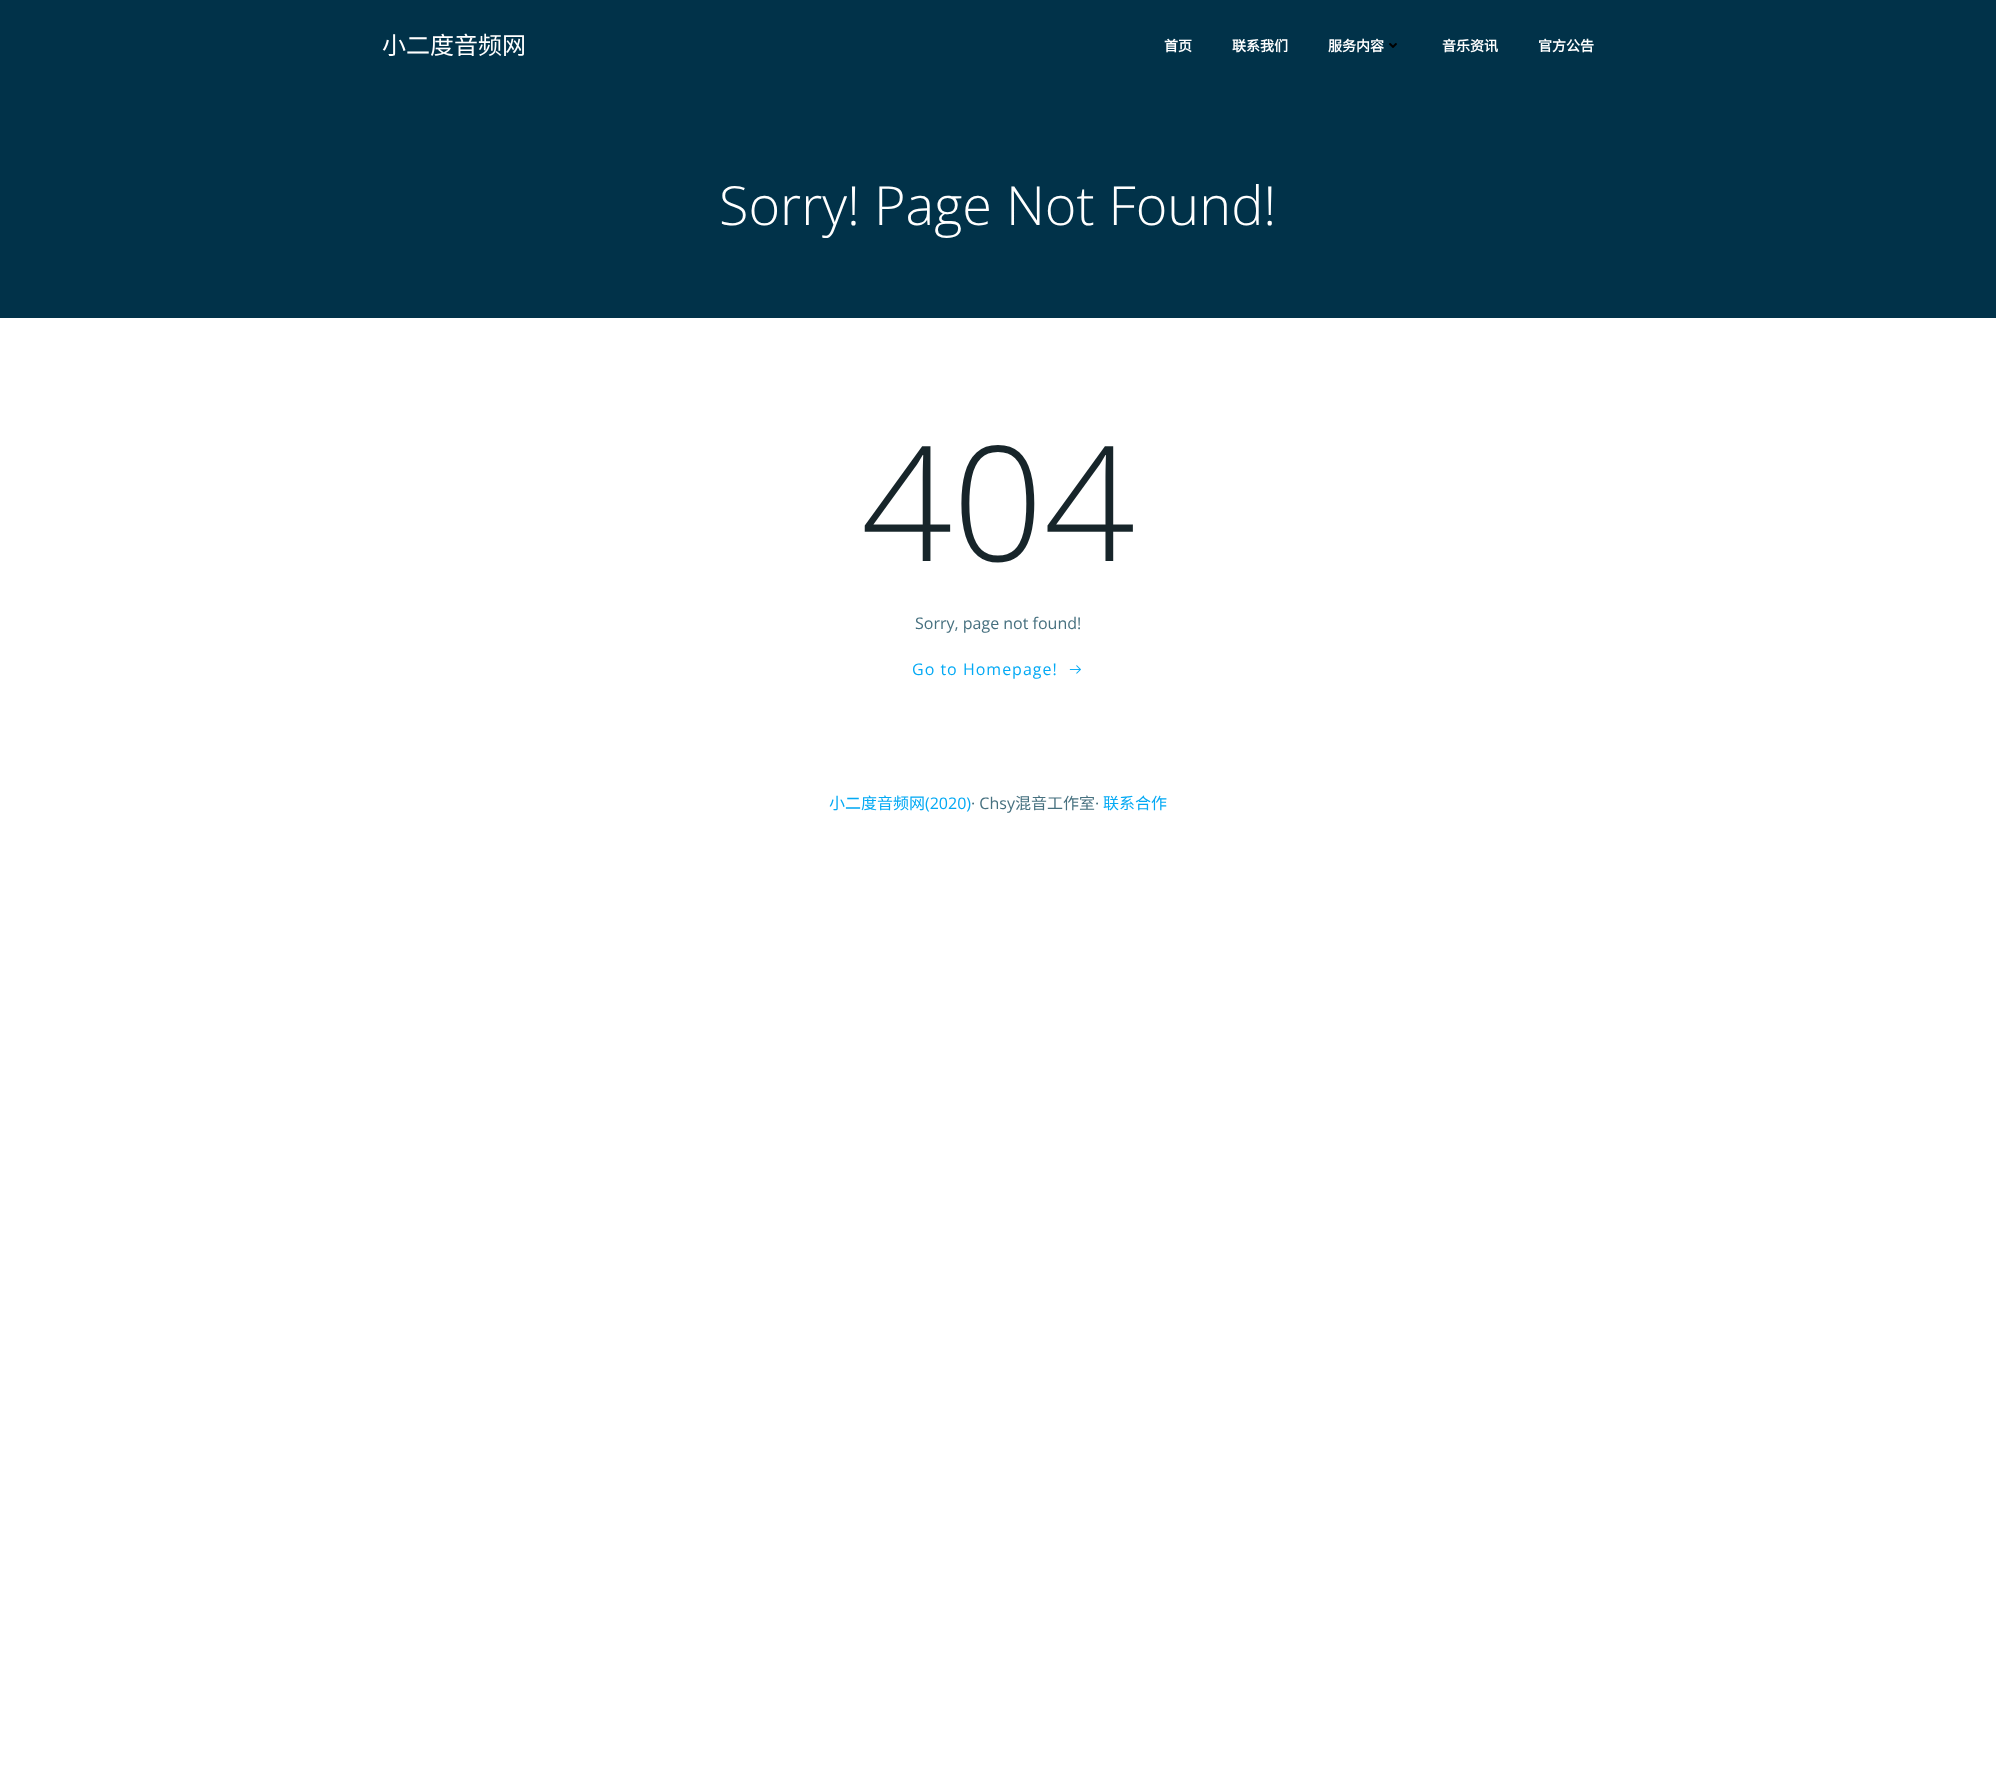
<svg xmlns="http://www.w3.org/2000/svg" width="1996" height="1788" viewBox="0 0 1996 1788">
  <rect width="100%" height="100%" fill="rgb(255,255,255)"/>
  <rect x="0" y="0" width="1996" height="318" fill="rgb(1,50,73)"/>
  <text x="382" y="54" font-family="Noto Sans CJK SC" font-size="24" fill="rgb(255,255,255)">小二度音频网</text>
  <g font-family="Noto Sans CJK SC" font-size="14" font-weight="bold" fill="rgb(255,255,255)">
    <text x="1164" y="51">首页</text>
    <text x="1232" y="51">联系我们</text>
    <text x="1328" y="51">服务内容</text>
  </g>
  <image x="1389" y="43" width="8" height="5" href="pic1.png"/>
  <g font-family="Noto Sans CJK SC" font-size="14" font-weight="bold" fill="rgb(255,255,255)">
    <text x="1442" y="51">音乐资讯</text>
    <text x="1538" y="51">官方公告</text>
  </g>
  <text x="719" y="225" font-family="Open Sans" font-size="54" font-weight="300" fill="rgb(255,255,255)">Sorry! Page Not Found!</text>
  <text x="861" y="561" font-family="Open Sans" font-size="160" font-weight="300" fill="rgb(23,37,42)">404</text>
  <text x="915" y="629" font-family="Open Sans" font-size="16" fill="rgb(70,112,127)">Sorry, page not found!</text>
  <text x="912" y="675" font-family="Open Sans" font-size="16" letter-spacing="1" fill="rgb(3,169,244)">Go to Homepage!</text>
  <image x="1069" y="665" width="12" height="9" href="pic2.png"/>
  <text x="829" y="809" font-family="Noto Sans CJK SC" font-size="16" fill="rgb(3,169,244)">小二度音频网</text>
  <text x="925" y="809" font-family="Open Sans" font-size="16" fill="rgb(3,169,244)">(2020)</text>
  <text x="971" y="809" font-family="Open Sans" font-size="16" fill="rgb(70,112,127)">· Chsy</text>
  <text x="1015" y="809" font-family="Noto Sans CJK SC" font-size="16" fill="rgb(70,112,127)">混音工作室</text>
  <text x="1095" y="809" font-family="Open Sans" font-size="16" fill="rgb(70,112,127)">·</text>
  <text x="1103" y="809" font-family="Noto Sans CJK SC" font-size="16" fill="rgb(3,169,244)">联系合作</text>
</svg>
